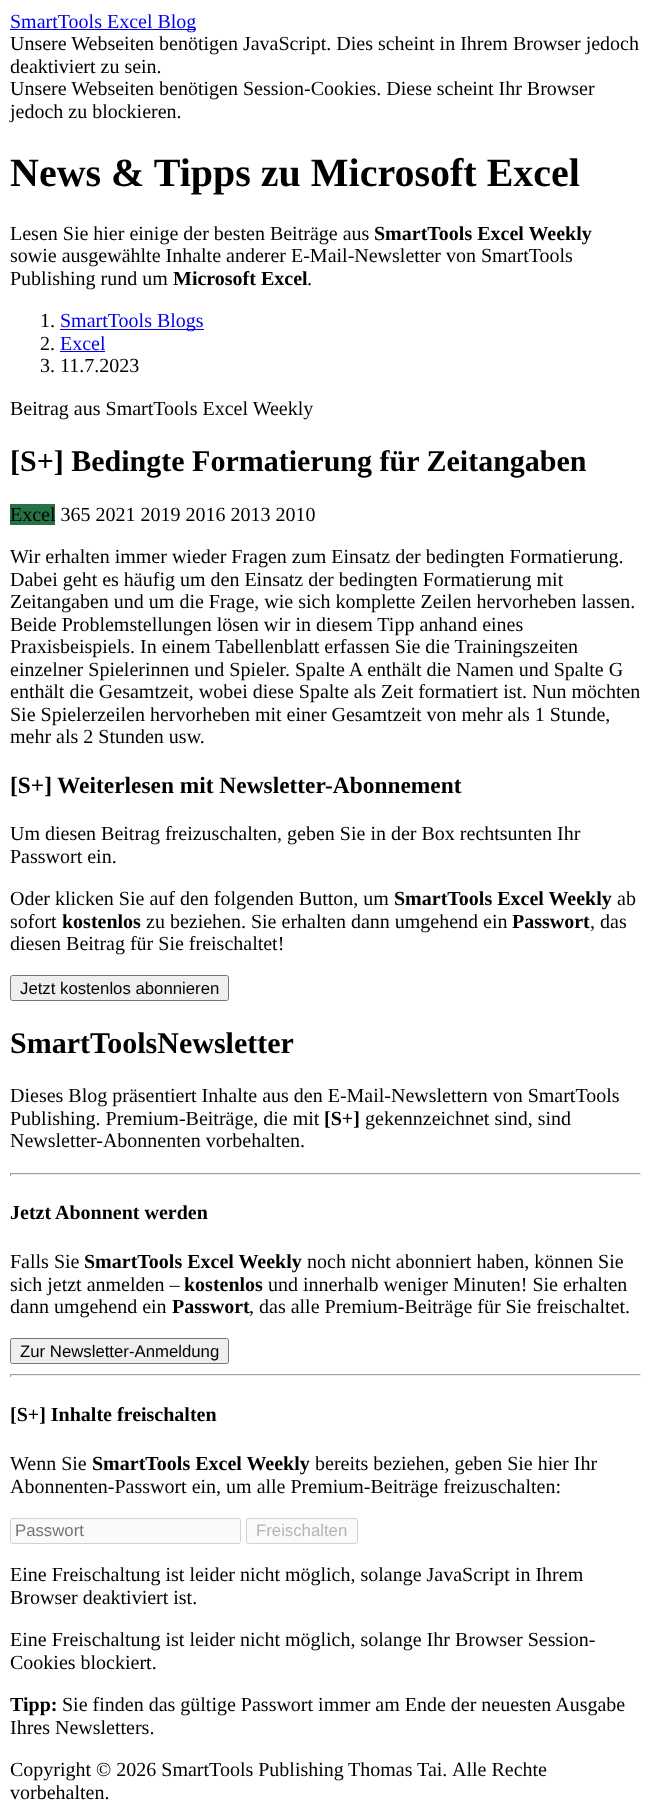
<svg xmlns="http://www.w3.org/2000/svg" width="651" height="1809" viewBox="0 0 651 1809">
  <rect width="100%" height="100%" fill="rgb(255,255,255)"/>
  <rect x="10" y="29" width="186" height="1" fill="rgb(0,0,238)"/>
  <text x="10" y="28" font-family="Liberation Serif" font-size="20" fill="rgb(0,0,238)">SmartTools Excel Blog</text>
  <g font-family="Liberation Serif" font-size="20" fill="rgb(0,0,0)">
    <text>
      <tspan x="10" y="50">Unsere Webseiten benötigen JavaScript. Dies scheint in Ihrem Browser jedoch</tspan>
      <tspan x="10" y="73">deaktiviert zu sein.</tspan>
      <tspan x="10" y="95">Unsere Webseiten benötigen Session-Cookies. Diese scheint Ihr Browser</tspan>
      <tspan x="10" y="118">jedoch zu blockieren.</tspan>
    </text>
  </g>
  <text x="10" y="186" font-family="Liberation Serif" font-size="40" font-weight="bold" fill="rgb(0,0,0)">News &amp; Tipps zu Microsoft Excel</text>
  <text x="10" y="240" font-family="Liberation Serif" font-size="20" fill="rgb(0,0,0)">Lesen Sie hier einige der besten Beiträge aus</text>
  <text x="374" y="240" font-family="Liberation Serif" font-size="20" font-weight="bold" fill="rgb(0,0,0)">SmartTools Excel Weekly</text>
  <g font-family="Liberation Serif" font-size="20" fill="rgb(0,0,0)">
    <text>
      <tspan x="10" y="262">sowie ausgewählte Inhalte anderer E-Mail-Newsletter von SmartTools</tspan>
      <tspan x="10" y="285">Publishing rund um</tspan>
    </text>
  </g>
  <text x="173" y="285" font-family="Liberation Serif" font-size="20" font-weight="bold" fill="rgb(0,0,0)">Microsoft Excel</text>
  <g font-family="Liberation Serif" font-size="20" fill="rgb(0,0,0)">
    <text x="307" y="285">.</text>
    <text x="40" y="327">1.</text>
  </g>
  <rect x="60" y="329" width="144" height="1" fill="rgb(0,0,238)"/>
  <text x="60" y="327" font-family="Liberation Serif" font-size="20" fill="rgb(0,0,238)">SmartTools Blogs</text>
  <text x="40" y="350" font-family="Liberation Serif" font-size="20" fill="rgb(0,0,0)">2.</text>
  <text x="60" y="350" font-family="Liberation Serif" font-size="20" fill="rgb(0,0,238)">Excel</text>
  <rect x="60" y="351" width="45" height="1" fill="rgb(0,0,238)"/>
  <g font-family="Liberation Serif" font-size="20" fill="rgb(0,0,0)">
    <text x="40" y="372">3. 11.7.2023</text>
    <text x="10" y="415">Beitrag aus SmartTools Excel Weekly</text>
  </g>
  <text x="10" y="471" font-family="Liberation Serif" font-size="30" font-weight="bold" fill="rgb(0,0,0)">[S+] Bedingte Formatierung für Zeitangaben</text>
  <rect x="10" y="504" width="45" height="21" fill="rgb(37,114,71)"/>
  <g font-family="Liberation Serif" font-size="20" fill="rgb(0,0,0)">
    <text x="10" y="521">Excel 365 2021 2019 2016 2013 2010</text>
    <text>
      <tspan x="10" y="563">Wir erhalten immer wieder Fragen zum Einsatz der bedingten Formatierung.</tspan>
      <tspan x="10" y="586">Dabei geht es häufig um den Einsatz der bedingten Formatierung mit</tspan>
      <tspan x="10" y="608">Zeitangaben und um die Frage, wie sich komplette Zeilen hervorheben lassen.</tspan>
      <tspan x="10" y="631">Beide Problemstellungen lösen wir in diesem Tipp anhand eines</tspan>
      <tspan x="10" y="653">Praxisbeispiels. In einem Tabellenblatt erfassen Sie die Trainingszeiten</tspan>
      <tspan x="10" y="676">einzelner Spielerinnen und Spieler. Spalte A enthält die Namen und Spalte G</tspan>
      <tspan x="10" y="698">enthält die Gesamtzeit, wobei diese Spalte als Zeit formatiert ist. Nun möchten</tspan>
      <tspan x="10" y="721">Sie Spielerzeilen hervorheben mit einer Gesamtzeit von mehr als 1 Stunde,</tspan>
      <tspan x="10" y="743">mehr als 2 Stunden usw.</tspan>
    </text>
  </g>
  <g font-family="Liberation Serif" font-size="23.4" font-weight="bold" fill="rgb(0,0,0)">
    <text x="10" y="793">[S+]</text>
    <text x="57" y="793">Weiterlesen mit Newsletter-Abonnement</text>
  </g>
  <g font-family="Liberation Serif" font-size="20" fill="rgb(0,0,0)">
    <text>
      <tspan x="10" y="840">Um diesen Beitrag freizuschalten, geben Sie in der Box rechtsunten Ihr</tspan>
      <tspan x="10" y="863">Passwort ein.</tspan>
    </text>
    <text x="10" y="905">Oder klicken Sie auf den folgenden Button, um</text>
  </g>
  <text x="394" y="905" font-family="Liberation Serif" font-size="20" font-weight="bold" fill="rgb(0,0,0)">SmartTools Excel Weekly</text>
  <g font-family="Liberation Serif" font-size="20" fill="rgb(0,0,0)">
    <text x="617" y="905">ab</text>
    <text x="10" y="928">sofort</text>
  </g>
  <text x="62" y="928" font-family="Liberation Serif" font-size="20" font-weight="bold" fill="rgb(0,0,0)">kostenlos</text>
  <text x="146" y="928" font-family="Liberation Serif" font-size="20" fill="rgb(0,0,0)">zu beziehen. Sie erhalten dann umgehend ein</text>
  <text x="512" y="928" font-family="Liberation Serif" font-size="20" font-weight="bold" fill="rgb(0,0,0)">Passwort</text>
  <g font-family="Liberation Serif" font-size="20" fill="rgb(0,0,0)">
    <text x="590" y="928">, das</text>
    <text x="10" y="950">diesen Beitrag für Sie freischaltet!</text>
  </g>
  <rect x="10.5" y="975.5" width="218" height="25" rx="2" fill="rgb(239,239,239)" stroke="rgb(118,118,118)"/>
  <text x="20" y="994" font-family="Liberation Sans" font-size="16.75" fill="rgb(0,0,0)">Jetzt kostenlos abonnieren</text>
  <text x="10" y="1053" font-family="Liberation Serif" font-size="30" font-weight="bold" fill="rgb(0,0,0)">SmartToolsNewsletter</text>
  <g font-family="Liberation Serif" font-size="20" fill="rgb(0,0,0)">
    <text>
      <tspan x="10" y="1102">Dieses Blog präsentiert Inhalte aus den E-Mail-Newslettern von SmartTools</tspan>
      <tspan x="10" y="1125">Publishing. Premium-Beiträge, die mit</tspan>
    </text>
  </g>
  <text x="324" y="1125" font-family="Liberation Serif" font-size="20" font-weight="bold" fill="rgb(0,0,0)">[S+]</text>
  <g font-family="Liberation Serif" font-size="20" fill="rgb(0,0,0)">
    <text x="365" y="1125">gekennzeichnet sind, sind</text>
    <text x="10" y="1147">Newsletter-Abonnenten vorbehalten.</text>
  </g>
  <rect x="10" y="1173" width="631" height="1" fill="rgb(159,159,159)"/>
  <rect x="640" y="1173" width="1" height="3" fill="rgb(238,238,238)"/>
  <rect x="10" y="1174" width="631" height="1" fill="rgb(238,238,238)"/>
  <rect x="10" y="1173" width="1" height="3" fill="rgb(159,159,159)"/>
  <text x="10" y="1219" font-family="Liberation Serif" font-size="20" font-weight="bold" fill="rgb(0,0,0)">Jetzt Abonnent werden</text>
  <text x="10" y="1268" font-family="Liberation Serif" font-size="20" fill="rgb(0,0,0)">Falls Sie</text>
  <text x="84" y="1268" font-family="Liberation Serif" font-size="20" font-weight="bold" fill="rgb(0,0,0)">SmartTools Excel Weekly</text>
  <g font-family="Liberation Serif" font-size="20" fill="rgb(0,0,0)">
    <text x="307" y="1268">noch nicht abonniert haben, können Sie</text>
    <text x="10" y="1291">sich jetzt anmelden –</text>
  </g>
  <text x="184" y="1291" font-family="Liberation Serif" font-size="20" font-weight="bold" fill="rgb(0,0,0)">kostenlos</text>
  <g font-family="Liberation Serif" font-size="20" fill="rgb(0,0,0)">
    <text x="268" y="1291">und innerhalb weniger Minuten! Sie erhalten</text>
    <text x="10" y="1313">dann umgehend ein</text>
  </g>
  <text x="172" y="1313" font-family="Liberation Serif" font-size="20" font-weight="bold" fill="rgb(0,0,0)">Passwort</text>
  <text x="249" y="1313" font-family="Liberation Serif" font-size="20" fill="rgb(0,0,0)">, das alle Premium-Beiträge für Sie freischaltet.</text>
  <rect x="10.5" y="1338.5" width="218" height="25" rx="2" fill="rgb(239,239,239)" stroke="rgb(118,118,118)"/>
  <text x="20" y="1357" font-family="Liberation Sans" font-size="16.75" fill="rgb(0,0,0)">Zur Newsletter-Anmeldung</text>
  <rect x="10" y="1374" width="631" height="1" fill="rgb(159,159,159)"/>
  <rect x="640" y="1374" width="1" height="3" fill="rgb(238,238,238)"/>
  <rect x="10" y="1375" width="631" height="1" fill="rgb(238,238,238)"/>
  <rect x="10" y="1374" width="1" height="3" fill="rgb(159,159,159)"/>
  <text x="10" y="1421" font-family="Liberation Serif" font-size="20" font-weight="bold" fill="rgb(0,0,0)">[S+] Inhalte freischalten</text>
  <text x="10" y="1470" font-family="Liberation Serif" font-size="20" fill="rgb(0,0,0)">Wenn Sie</text>
  <text x="92" y="1470" font-family="Liberation Serif" font-size="20" font-weight="bold" fill="rgb(0,0,0)">SmartTools Excel Weekly</text>
  <g font-family="Liberation Serif" font-size="20" fill="rgb(0,0,0)">
    <text x="315" y="1470">bereits beziehen, geben Sie hier Ihr</text>
    <text x="10" y="1493">Abonnenten-Passwort ein, um alle Premium-Beiträge freizuschalten:</text>
  </g>
  <rect x="10.5" y="1518.5" width="230" height="25" rx="2" fill="rgb(250,250,250)" stroke="rgb(210,210,210)"/>
  <text x="15" y="1536" font-family="Liberation Sans" font-size="16.75" fill="rgb(117,117,117)">Passwort</text>
  <rect x="246.5" y="1518.5" width="111" height="25" rx="2" fill="rgb(250,250,250)" stroke="rgb(210,210,210)"/>
  <text x="256" y="1536" font-family="Liberation Sans" font-size="16.75" fill="rgb(180,180,180)">Freischalten</text>
  <g font-family="Liberation Serif" font-size="20" fill="rgb(0,0,0)">
    <text>
      <tspan x="10" y="1581">Eine Freischaltung ist leider nicht möglich, solange JavaScript in Ihrem</tspan>
      <tspan x="10" y="1604">Browser deaktiviert ist.</tspan>
    </text>
    <text>
      <tspan x="10" y="1646">Eine Freischaltung ist leider nicht möglich, solange Ihr Browser Session-</tspan>
      <tspan x="10" y="1669">Cookies blockiert.</tspan>
    </text>
  </g>
  <text x="10" y="1711" font-family="Liberation Serif" font-size="20" font-weight="bold" fill="rgb(0,0,0)">Tipp:</text>
  <g font-family="Liberation Serif" font-size="20" fill="rgb(0,0,0)">
    <text x="62" y="1711">Sie finden das gültige Passwort immer am Ende der neuesten Ausgabe</text>
    <text x="10" y="1734">Ihres Newsletters.</text>
    <text x="10" y="1776">Copyright © 2026 SmartTools Publishing</text>
    <text x="348" y="1776">Thomas Tai.</text>
    <text x="452" y="1776">Alle Rechte</text>
    <text x="10" y="1799">vorbehalten.</text>
  </g>
</svg>
